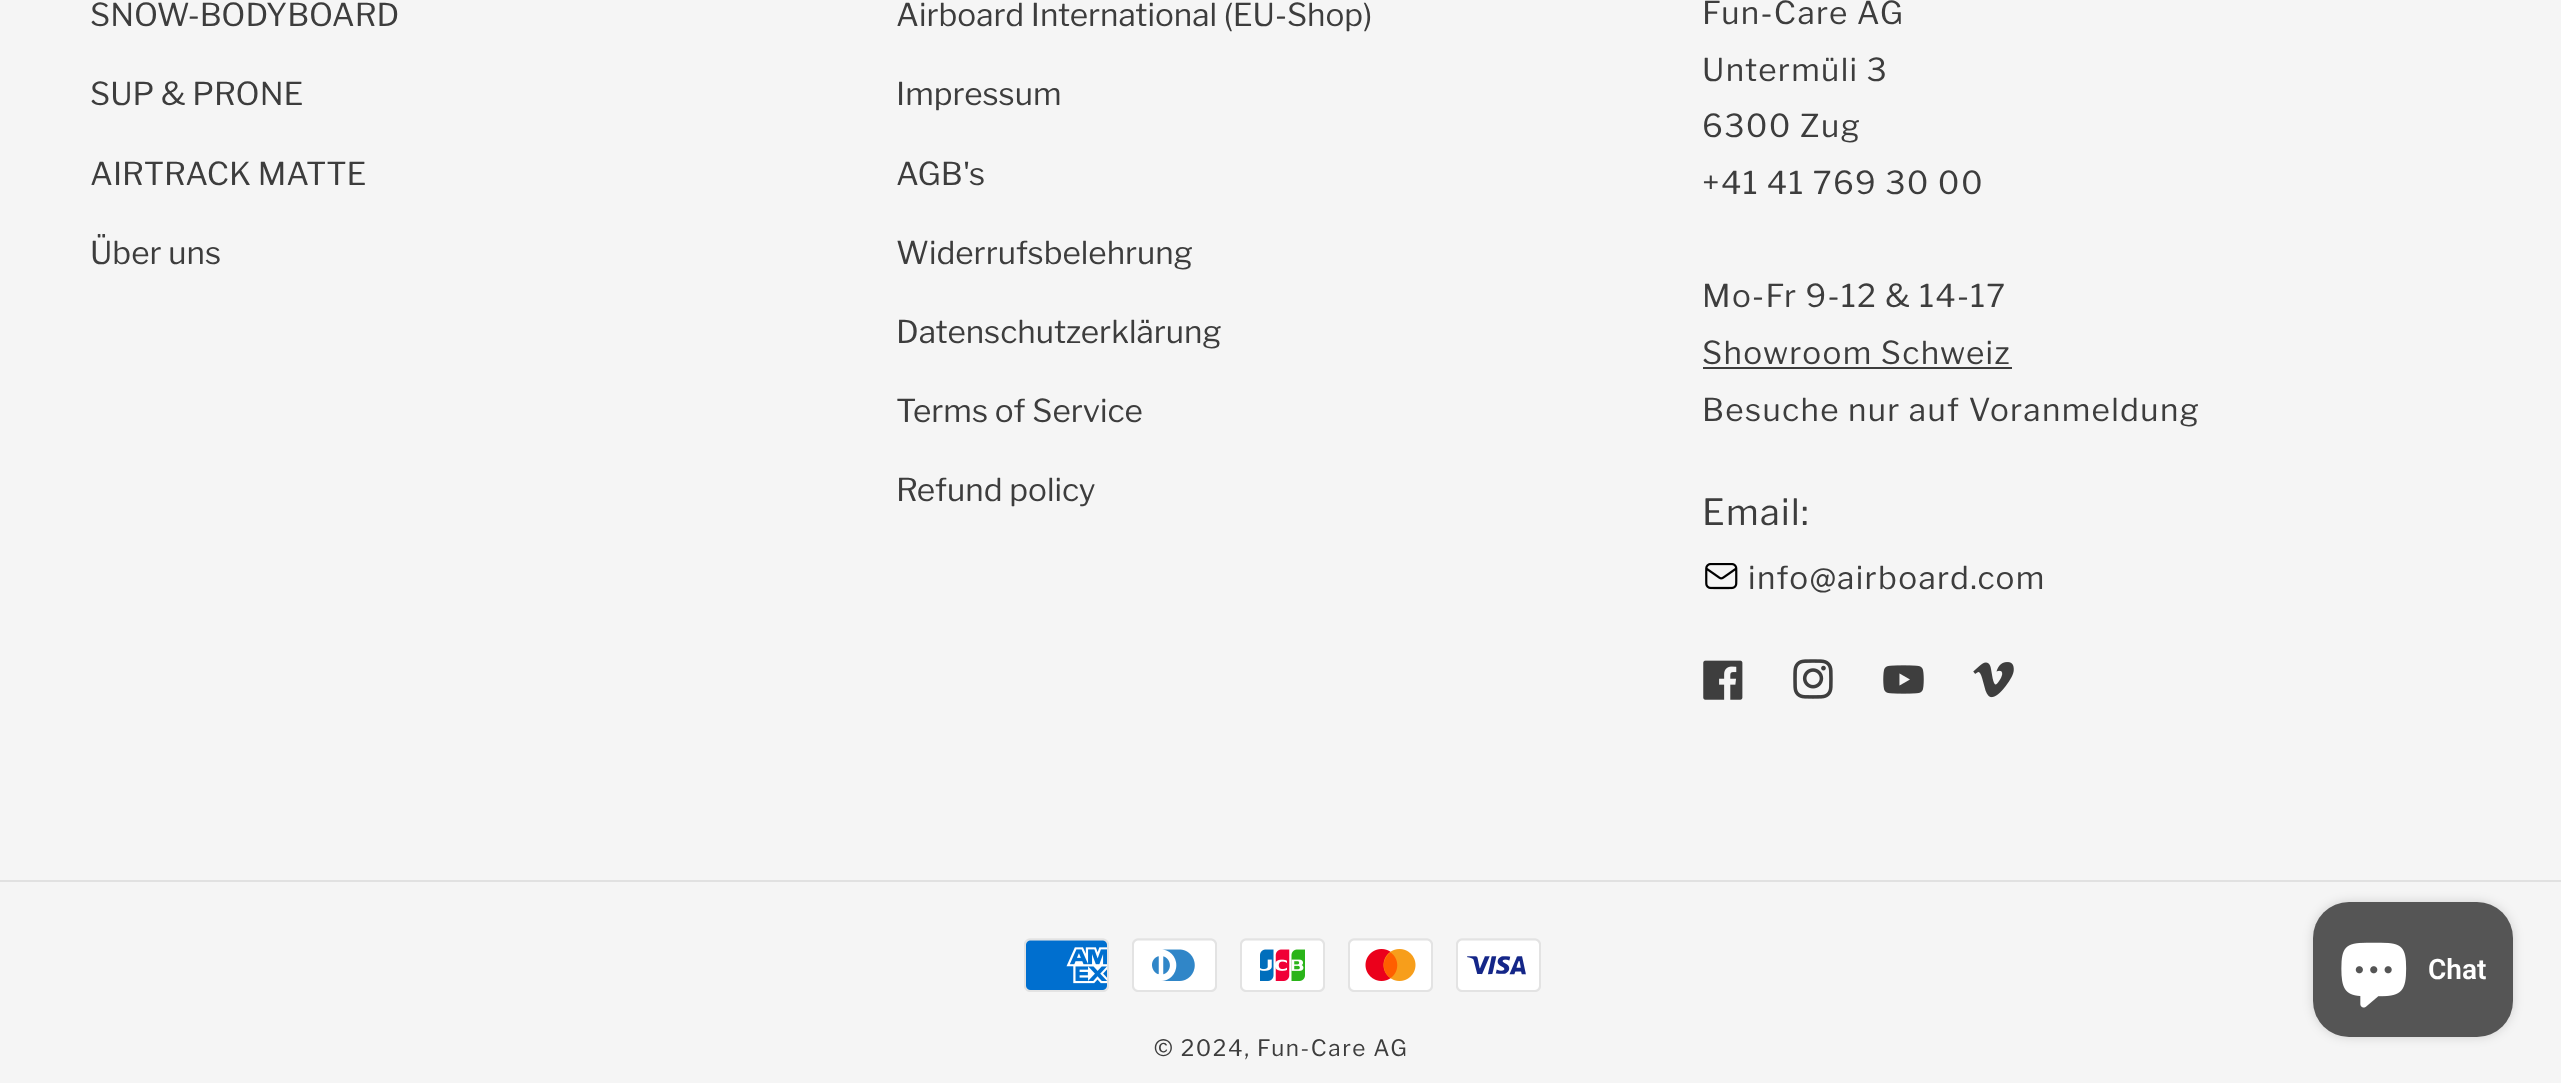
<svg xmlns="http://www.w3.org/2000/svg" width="2561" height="1083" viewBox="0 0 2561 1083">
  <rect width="100%" height="100%" fill="rgb(245,245,245)"/>
  <g font-family="Libre Franklin" font-size="31.5" fill="rgb(61,61,61)">
    <text x="90" y="26">SNOW-BODYBOARD</text>
    <text x="90" y="105">SUP &amp; PRONE</text>
    <text x="90" y="185">AIRTRACK MATTE</text>
    <text x="90" y="264">Über uns</text>
    <text x="896" y="26">Airboard International (EU-Shop)</text>
    <text x="896" y="105">Impressum</text>
    <text x="896" y="185">AGB's</text>
    <text x="896" y="264">Widerrufsbelehrung</text>
    <text x="896" y="343">Datenschutzerklärung</text>
    <text x="896" y="422">Terms of Service</text>
    <text x="896" y="501">Refund policy</text>
  </g>
  <g font-family="Libre Franklin" font-size="31.5" letter-spacing="1.35" fill="rgb(61,61,61)">
    <text>
      <tspan x="1702" y="24">Fun-Care AG</tspan>
      <tspan x="1702" y="81">Untermüli 3</tspan>
      <tspan x="1702" y="137">6300 Zug</tspan>
      <tspan x="1702" y="194">+41 41 769 30 00</tspan>
    </text>
    <text>
      <tspan x="1702" y="307">Mo-Fr 9-12 &amp; 14-17</tspan>
      <tspan x="1702" y="364">Showroom Schweiz</tspan>
    </text>
  </g>
  <rect x="1703" y="367" width="309" height="2" fill="rgb(61,61,61)"/>
  <text x="1702" y="421" font-family="Libre Franklin" font-size="31.5" letter-spacing="1.35" fill="rgb(61,61,61)">Besuche nur auf Voranmeldung</text>
  <text x="1702" y="525" font-family="Libre Franklin" font-size="36" letter-spacing="1.35" fill="rgb(61,61,61)">Email:</text>
  <image x="1705" y="563" width="33" height="27" href="pic1.png"/>
  <text x="1748" y="589" font-family="Libre Franklin" font-size="31.5" letter-spacing="1.35" fill="rgb(61,61,61)">info@airboard.com</text>
  <image x="1703" y="660" width="40" height="40" href="pic2.png"/>
  <image x="1793" y="659" width="40" height="40" href="pic3.png"/>
  <image x="1883" y="665" width="41" height="29" href="pic4.png"/>
  <image x="1973" y="662" width="41" height="36" href="pic5.png"/>
  <rect x="0" y="880" width="2561" height="2" fill="rgb(225,225,225)"/>
  <image x="1024" y="938" width="85" height="54" href="pic6.png"/>
  <image x="1132" y="938" width="85" height="54" href="pic7.png"/>
  <image x="1240" y="938" width="85" height="54" href="pic8.png"/>
  <image x="1348" y="938" width="85" height="54" href="pic9.png"/>
  <image x="1456" y="938" width="85" height="54" href="pic10.png"/>
  <text x="1154" y="1056" font-family="Libre Franklin" font-size="22.5" letter-spacing="1.6" fill="rgb(61,61,61)">© 2024, Fun-Care AG</text>
  <rect x="2313" y="902" width="200" height="135" rx="36" fill="rgba(0,0,0,0.15)" filter="blur(5.5px)"/>
  <rect x="2313" y="902" width="200" height="135" rx="36" fill="rgb(85,85,85)"/>
  <image x="2341" y="942" width="66" height="66" href="pic11.png"/>
  <text x="2428" y="979" font-family="Roboto" font-size="28" font-weight="600" fill="rgb(255,255,255)">Chat</text>
</svg>
